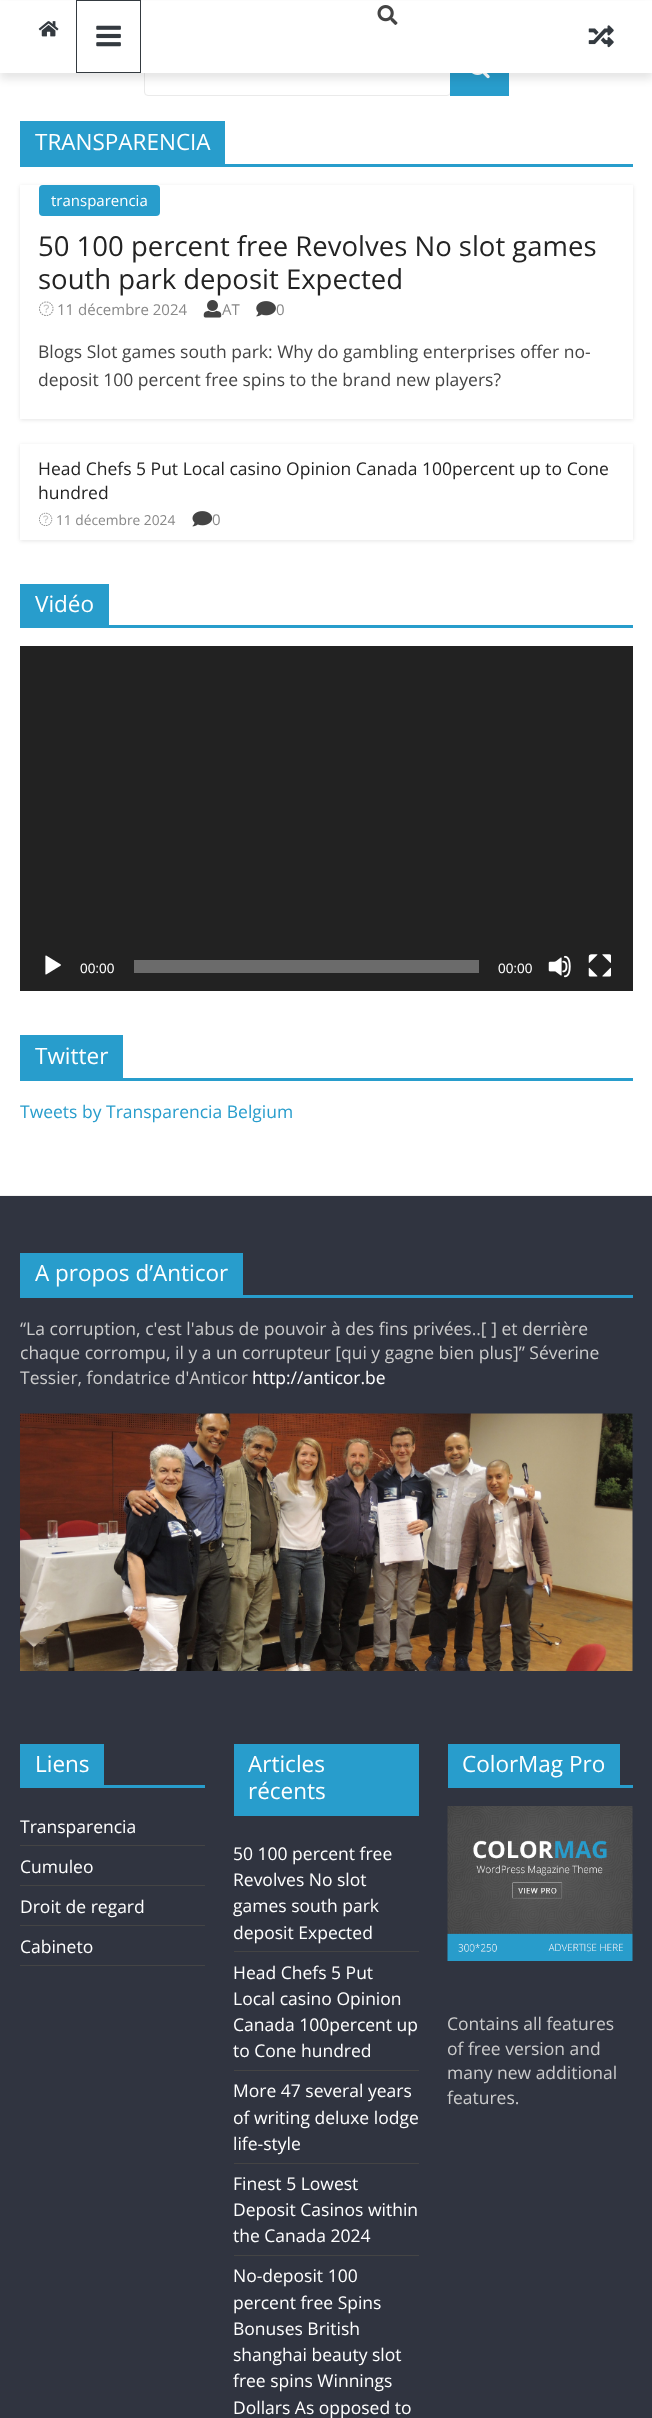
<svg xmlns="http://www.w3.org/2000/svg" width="652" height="2418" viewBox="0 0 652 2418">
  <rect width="100%" height="100%" fill="rgb(255,255,255)"/>
  <rect x="144.5" y="39.5" width="306" height="56" rx="3.5" fill="none" stroke="rgb(234,234,234)"/>
  <rect x="450" y="73" width="59" height="23" fill="rgb(40,157,204)"/>
  <image x="472" y="73" width="18" height="6" href="pic5.png"/>
  <rect x="0" y="6" width="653" height="73" fill="rgba(0,0,0,0.1)" filter="blur(4px)"/>
  <rect x="0" y="1" width="652" height="72" fill="rgb(255,255,255)"/>
  <rect x="76.5" y="0.5" width="64" height="72" fill="none" stroke="rgb(52,58,64)"/>
  <image x="96" y="25" width="25" height="22" href="pic1.png"/>
  <image x="377" y="5" width="21" height="20" href="pic2.png"/>
  <image x="38" y="21" width="21" height="16" href="pic3.png"/>
  <image x="588" y="25" width="26" height="23" href="pic4.png"/>
  <rect x="20" y="164" width="613" height="3" fill="rgb(40,157,204)"/>
  <rect x="20" y="121" width="205" height="43" fill="rgb(40,157,204)"/>
  <text x="35" y="150" font-family="Open Sans" font-size="22.5" fill="rgb(255,255,255)">TRANSPARENCIA</text>
  <rect x="20" y="186" width="613" height="234" fill="rgba(0,0,0,0.1)" filter="blur(2px)"/>
  <rect x="20" y="185" width="613" height="234" fill="rgb(255,255,255)"/>
  <rect x="39" y="185" width="121" height="31" rx="4" fill="rgb(40,157,204)"/>
  <text x="51" y="206" font-family="Open Sans" font-size="15" fill="rgb(255,255,255)">transparencia</text>
  <g font-family="Open Sans" font-size="27.5" fill="rgb(35,35,35)">
    <text>
      <tspan x="38" y="256">50 100 percent free Revolves No slot games</tspan>
      <tspan x="38" y="289">south park deposit Expected</tspan>
    </text>
  </g>
  <image x="39" y="301" width="15" height="15" href="pic6.png"/>
  <g font-family="Open Sans" font-size="15" fill="rgb(136,136,136)">
    <text x="57" y="315">11 décembre 2024</text>
    <text x="222" y="315">AT</text>
  </g>
  <image x="203" y="300" width="19" height="18" href="pic7.png"/>
  <image x="256" y="301" width="20" height="16" href="pic8.png"/>
  <text x="276" y="315" font-family="Open Sans" font-size="15" fill="rgb(136,136,136)">0</text>
  <g font-family="Open Sans" font-size="17.5" fill="rgb(68,68,68)">
    <text>
      <tspan x="38" y="358">Blogs Slot games south park: Why do gambling enterprises offer no-</tspan>
      <tspan x="38" y="386">deposit 100 percent free spins to the brand new players?</tspan>
    </text>
  </g>
  <rect x="20" y="445" width="613" height="96" fill="rgba(0,0,0,0.1)" filter="blur(2px)"/>
  <rect x="20" y="444" width="613" height="96" fill="rgb(255,255,255)"/>
  <g font-family="Open Sans" font-size="17.5" fill="rgb(35,35,35)">
    <text>
      <tspan x="38" y="475">Head Chefs 5 Put Local casino Opinion Canada 100percent up to Cone</tspan>
      <tspan x="38" y="499">hundred</tspan>
    </text>
  </g>
  <image x="39" y="512" width="14" height="14" href="pic9.png"/>
  <text x="56" y="525" font-family="Open Sans" font-size="13.75" fill="rgb(136,136,136)">11 décembre 2024</text>
  <text x="212" y="525" font-family="Open Sans" font-size="15" fill="rgb(136,136,136)">0</text>
  <image x="192" y="511" width="21" height="16" href="pic10.png"/>
  <rect x="20" y="625" width="613" height="3" fill="rgb(40,157,204)"/>
  <rect x="20" y="584" width="89" height="41" fill="rgb(40,157,204)"/>
  <text x="35" y="612" font-family="Open Sans" font-size="22.5" fill="rgb(255,255,255)">Vidéo</text>
  <rect x="20" y="646" width="613" height="345" fill="rgb(34,34,34)"/>
  <image x="45" y="955" width="16" height="20" href="pic11.png"/>
  <text x="80" y="973" font-family="Liberation Sans" font-size="13.75" fill="rgb(255,255,255)">00:00</text>
  <rect x="134" y="960" width="345" height="13" fill="rgb(107,107,107)"/>
  <text x="498" y="973" font-family="Liberation Sans" font-size="13.75" fill="rgb(255,255,255)">00:00</text>
  <image x="548" y="955" width="23" height="23" href="pic12.png"/>
  <image x="588" y="954" width="23" height="23" href="pic13.png"/>
  <rect x="20" y="1078" width="613" height="3" fill="rgb(40,157,204)"/>
  <rect x="20" y="1035" width="103" height="43" fill="rgb(40,157,204)"/>
  <text x="35" y="1064" font-family="Open Sans" font-size="22.5" fill="rgb(255,255,255)">Twitter</text>
  <text x="20" y="1118" font-family="Open Sans" font-size="17.5" fill="rgb(40,157,204)">Tweets by Transparencia Belgium</text>
  <rect x="0" y="1196" width="652" height="1222" fill="rgb(48,52,64)"/>
  <rect x="0" y="1195" width="652" height="1" fill="rgb(242,242,242)"/>
  <rect x="20" y="1295" width="613" height="3" fill="rgb(40,157,204)"/>
  <rect x="20" y="1253" width="223" height="42" fill="rgb(40,157,204)"/>
  <text x="35" y="1281" font-family="Open Sans" font-size="22.5" fill="rgb(255,255,255)">A propos d’Anticor</text>
  <g font-family="Open Sans" font-size="17.5" fill="rgb(204,204,204)">
    <text>
      <tspan x="20" y="1335">“La corruption, c'est l'abus de pouvoir à des fins privées..[ ] et derrière</tspan>
      <tspan x="20" y="1359">chaque corrompu, il y a un corrupteur [qui y gagne bien plus]” Séverine</tspan>
      <tspan x="20" y="1384">Tessier, fondatrice d'Anticor</tspan>
    </text>
  </g>
  <text x="252" y="1384" font-family="Open Sans" font-size="17.5" fill="rgb(255,255,255)">http://anticor.be</text>
  <image x="20" y="1413" width="613" height="258" href="pic14.png"/>
  <rect x="20" y="1785" width="185" height="3" fill="rgb(40,157,204)"/>
  <rect x="20" y="1744" width="84" height="41" fill="rgb(40,157,204)"/>
  <text x="35" y="1772" font-family="Open Sans" font-size="22.5" fill="rgb(255,255,255)">Liens</text>
  <rect x="20" y="1845" width="185" height="1" fill="rgb(68,68,68)"/>
  <text x="20" y="1833" font-family="Open Sans" font-size="17.5" fill="rgb(255,255,255)">Transparencia</text>
  <rect x="20" y="1885" width="185" height="1" fill="rgb(68,68,68)"/>
  <text x="20" y="1873" font-family="Open Sans" font-size="17.5" fill="rgb(255,255,255)">Cumuleo</text>
  <rect x="20" y="1925" width="185" height="1" fill="rgb(68,68,68)"/>
  <text x="20" y="1913" font-family="Open Sans" font-size="17.5" fill="rgb(255,255,255)">Droit de regard</text>
  <rect x="20" y="1965" width="185" height="1" fill="rgb(68,68,68)"/>
  <text x="20" y="1953" font-family="Open Sans" font-size="17.5" fill="rgb(255,255,255)">Cabineto</text>
  <rect x="234" y="1744" width="185" height="72" fill="rgb(40,157,204)"/>
  <g font-family="Open Sans" font-size="22.5" fill="rgb(255,255,255)">
    <text>
      <tspan x="248" y="1772">Articles</tspan>
      <tspan x="248" y="1799">récents</tspan>
    </text>
  </g>
  <rect x="234" y="1951" width="185" height="1" fill="rgb(68,68,68)"/>
  <g font-family="Open Sans" font-size="17.5" fill="rgb(255,255,255)">
    <text>
      <tspan x="233" y="1860">50 100 percent free</tspan>
      <tspan x="233" y="1886">Revolves No slot</tspan>
      <tspan x="233" y="1912">games south park</tspan>
      <tspan x="233" y="1939">deposit Expected</tspan>
    </text>
  </g>
  <rect x="234" y="2070" width="185" height="1" fill="rgb(68,68,68)"/>
  <g font-family="Open Sans" font-size="17.5" fill="rgb(255,255,255)">
    <text>
      <tspan x="233" y="1979">Head Chefs 5 Put</tspan>
      <tspan x="233" y="2005">Local casino Opinion</tspan>
      <tspan x="233" y="2031">Canada 100percent up</tspan>
      <tspan x="233" y="2057">to Cone hundred</tspan>
    </text>
  </g>
  <rect x="234" y="2163" width="185" height="1" fill="rgb(68,68,68)"/>
  <g font-family="Open Sans" font-size="17.5" fill="rgb(255,255,255)">
    <text>
      <tspan x="233" y="2097">More 47 several years</tspan>
      <tspan x="233" y="2124">of writing deluxe lodge</tspan>
      <tspan x="233" y="2150">life-style</tspan>
    </text>
  </g>
  <rect x="234" y="2255" width="185" height="1" fill="rgb(68,68,68)"/>
  <g font-family="Open Sans" font-size="17.5" fill="rgb(255,255,255)">
    <text>
      <tspan x="233" y="2190">Finest 5 Lowest</tspan>
      <tspan x="233" y="2216">Deposit Casinos within</tspan>
      <tspan x="233" y="2242">the Canada 2024</tspan>
    </text>
    <text>
      <tspan x="233" y="2282">No-deposit 100</tspan>
      <tspan x="233" y="2309">percent free Spins</tspan>
      <tspan x="233" y="2335">Bonuses British</tspan>
      <tspan x="233" y="2361">shanghai beauty slot</tspan>
      <tspan x="233" y="2387">free spins Winnings</tspan>
      <tspan x="233" y="2414">Dollars As opposed to</tspan>
    </text>
  </g>
  <rect x="448" y="1785" width="185" height="3" fill="rgb(40,157,204)"/>
  <rect x="448" y="1744" width="172" height="41" fill="rgb(40,157,204)"/>
  <text x="462" y="1772" font-family="Open Sans" font-size="22.5" fill="rgb(255,255,255)">ColorMag Pro</text>
  <image x="447" y="1806" width="186" height="155" href="pic15.png"/>
  <g font-family="Open Sans" font-size="17.5" fill="rgb(204,204,204)">
    <text>
      <tspan x="447" y="2030">Contains all features</tspan>
      <tspan x="447" y="2055">of free version and</tspan>
      <tspan x="447" y="2079">many new additional</tspan>
      <tspan x="447" y="2104">features.</tspan>
    </text>
  </g>
</svg>
